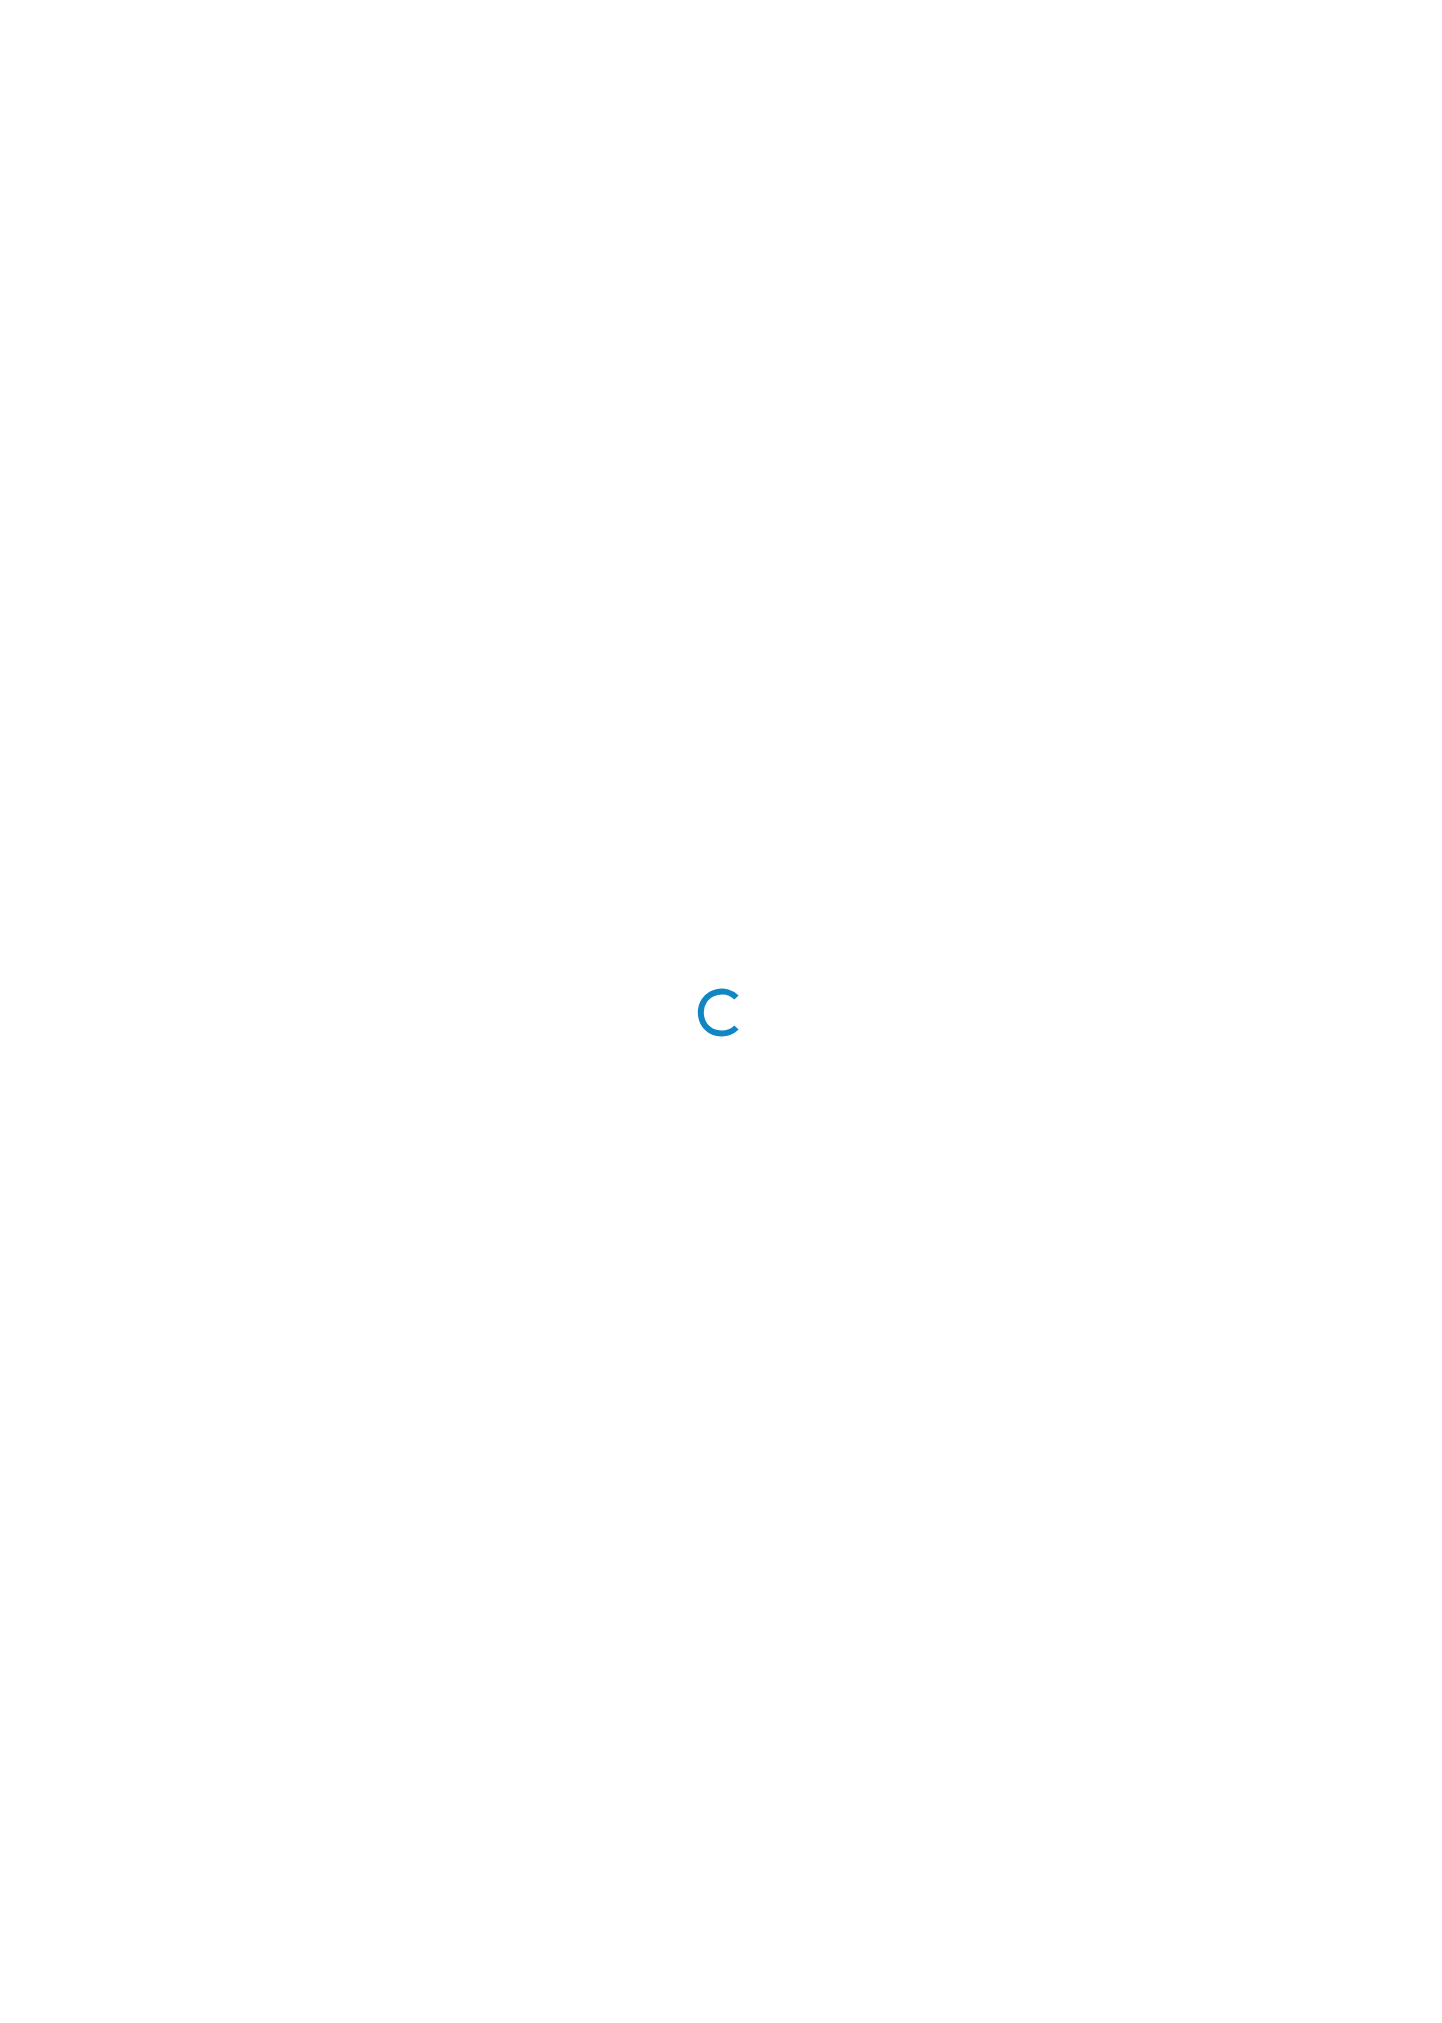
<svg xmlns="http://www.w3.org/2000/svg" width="1442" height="2023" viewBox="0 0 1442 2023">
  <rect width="100%" height="100%" fill="rgb(255,255,255)"/>
  <path d="M736.5 1027.5C732.5 1031.5 727 1033.5 721.5 1033.5C696.5 1033.5 693 997 717.5 992C724 990.5 731.5 992.5 736.5 997.5" fill="none" stroke="rgb(16,135,195)" stroke-width="6"/>
</svg>
